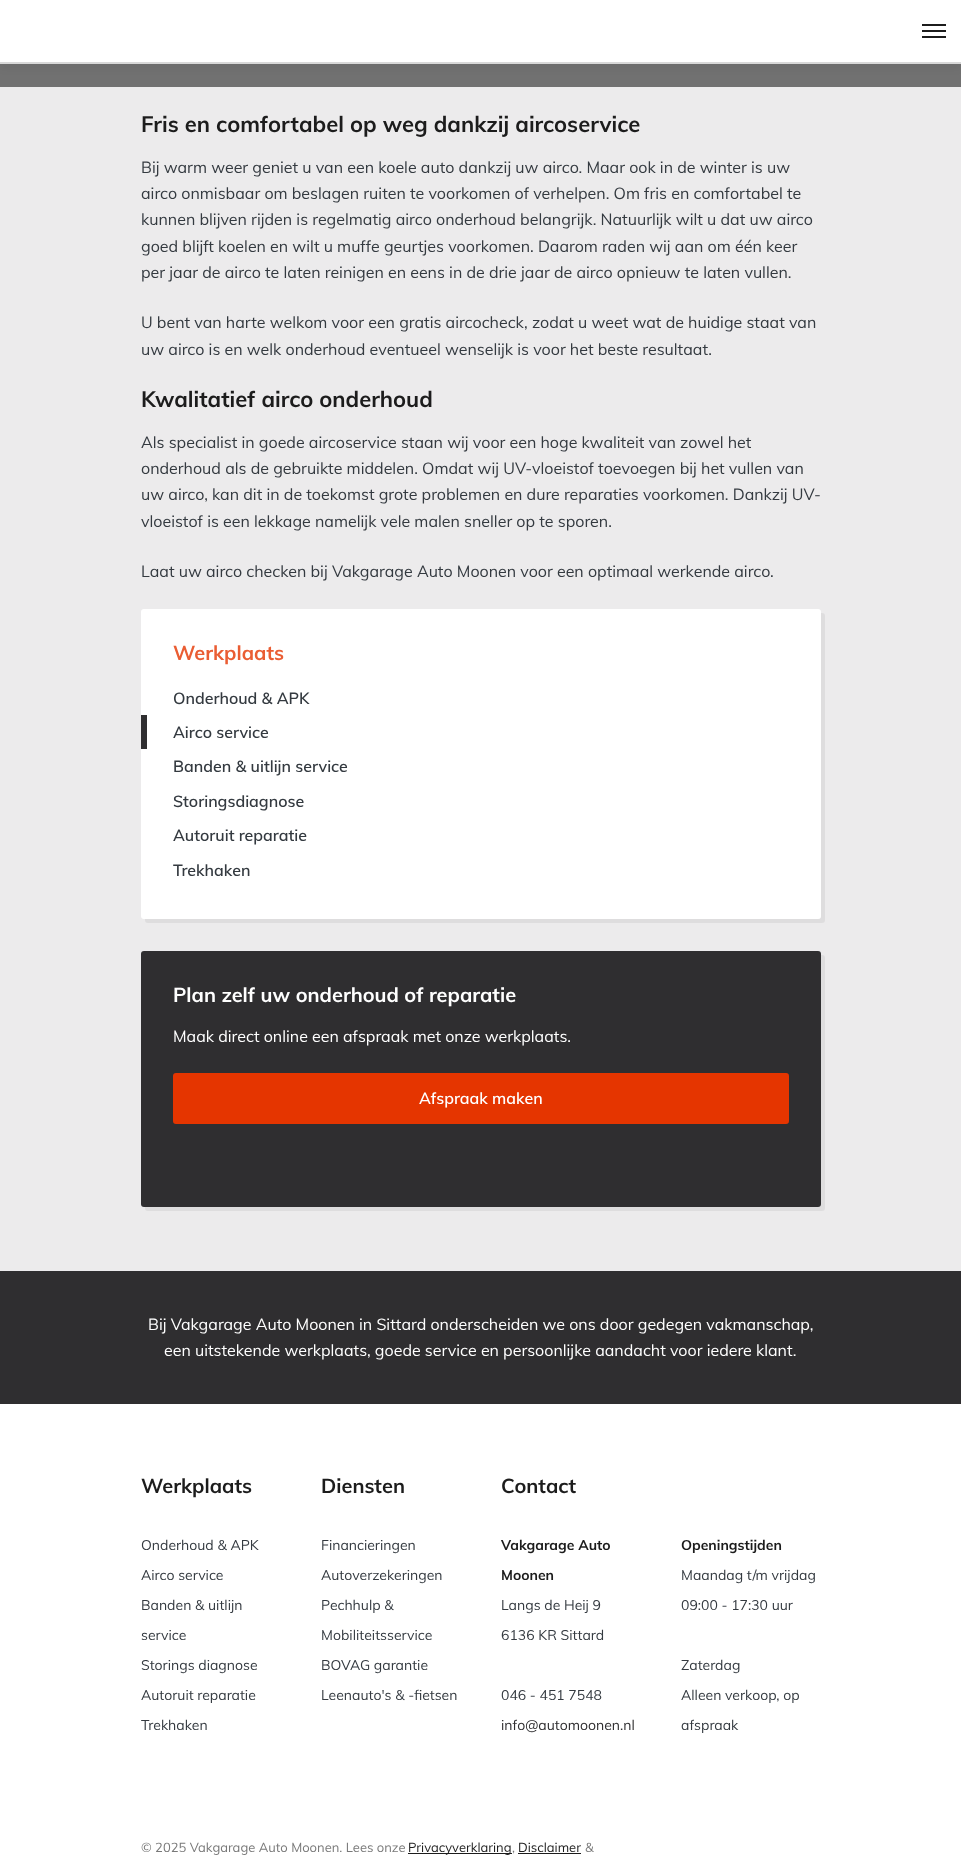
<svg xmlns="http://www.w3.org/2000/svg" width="961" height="1856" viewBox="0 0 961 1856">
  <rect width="100%" height="100%" fill="rgb(236,235,236)"/>
  <rect x="0" y="64" width="961" height="23" fill="rgb(113,113,113)"/>
  <rect x="0" y="4" width="961" height="64" fill="rgba(0,0,0,0.05)" filter="blur(4px)"/>
  <rect x="0" y="0" width="961" height="62" fill="rgb(255,255,255)"/>
  <rect x="0" y="62" width="961" height="2" fill="rgb(216,216,216)"/>
  <rect x="922" y="30" width="24" height="2" fill="rgb(28,28,28)"/>
  <rect x="922" y="24" width="24" height="2" fill="rgb(28,28,28)"/>
  <rect x="922" y="36" width="24" height="2" fill="rgb(28,28,28)"/>
  <text x="141" y="132" font-family="Muli" font-size="22" font-weight="bold" fill="rgb(28,28,28)">Fris en comfortabel op weg dankzij aircoservice</text>
  <g font-family="Muli" font-size="16" fill="rgb(52,58,64)">
    <text>
      <tspan x="141" y="173">Bij warm weer geniet u van een koele auto dankzij uw airco. Maar ook in de winter is uw</tspan>
      <tspan x="141" y="199">airco onmisbaar om beslagen ruiten te voorkomen of verhelpen. Om fris en comfortabel te</tspan>
      <tspan x="141" y="225">kunnen blijven rijden is regelmatig airco onderhoud belangrijk. Natuurlijk wilt u dat uw airco</tspan>
      <tspan x="141" y="252">goed blijft koelen en wilt u muffe geurtjes voorkomen. Daarom raden wij aan om één keer</tspan>
      <tspan x="141" y="278">per jaar de airco te laten reinigen en eens in de drie jaar de airco opnieuw te laten vullen.</tspan>
    </text>
    <text>
      <tspan x="141" y="328">U bent van harte welkom voor een gratis aircocheck, zodat u weet wat de huidige staat van</tspan>
      <tspan x="141" y="355">uw airco is en welk onderhoud eventueel wenselijk is voor het beste resultaat.</tspan>
    </text>
  </g>
  <text x="141" y="407" font-family="Muli" font-size="22" font-weight="bold" fill="rgb(28,28,28)">Kwalitatief airco onderhoud</text>
  <g font-family="Muli" font-size="16" fill="rgb(52,58,64)">
    <text>
      <tspan x="141" y="448">Als specialist in goede aircoservice staan wij voor een hoge kwaliteit van zowel het</tspan>
      <tspan x="141" y="474">onderhoud als de gebruikte middelen. Omdat wij UV-vloeistof toevoegen bij het vullen van</tspan>
      <tspan x="141" y="500">uw airco, kan dit in de toekomst grote problemen en dure reparaties voorkomen. Dankzij UV-</tspan>
      <tspan x="141" y="527">vloeistof is een lekkage namelijk vele malen sneller op te sporen.</tspan>
    </text>
    <text x="141" y="577">Laat uw airco checken bij Vakgarage Auto Moonen voor een optimaal werkende airco.</text>
  </g>
  <path d="M145 919V920C145 922 146 923 148 923H822C824 923 825 922 825 920V616C825 614 824 613 822 613H821V916C821 918 820 919 818 919Z" fill="rgb(222,221,222)"/>
  <rect x="141" y="609" width="680" height="310" rx="3" fill="rgb(255,255,255)"/>
  <text x="173" y="660" font-family="Muli" font-size="20" font-weight="bold" fill="rgb(234,93,51)">Werkplaats</text>
  <text x="173" y="704" font-family="Muli" font-size="16" font-weight="600" fill="rgb(52,58,64)">Onderhoud &amp; APK</text>
  <rect x="141" y="715" width="6" height="34" fill="rgb(47,46,48)"/>
  <g font-family="Muli" font-size="16" font-weight="600" fill="rgb(52,58,64)">
    <text x="173" y="738">Airco service</text>
    <text x="173" y="772">Banden &amp; uitlijn service</text>
    <text x="173" y="807">Storingsdiagnose</text>
    <text x="173" y="841">Autoruit reparatie</text>
    <text x="173" y="876">Trekhaken</text>
  </g>
  <path d="M145 1207V1208C145 1210 146 1211 148 1211H822C824 1211 825 1210 825 1208V958C825 956 824 955 822 955H821V1204C821 1206 820 1207 818 1207Z" fill="rgb(222,221,222)"/>
  <rect x="141" y="951" width="680" height="256" rx="3" fill="rgb(47,46,48)"/>
  <text x="173" y="1002" font-family="Muli" font-size="20" font-weight="bold" fill="rgb(255,255,255)">Plan zelf uw onderhoud of reparatie</text>
  <text x="173" y="1042" font-family="Muli" font-size="16" fill="rgb(255,255,255)">Maak direct online een afspraak met onze werkplaats.</text>
  <rect x="174" y="1074" width="614" height="49" rx="2" fill="rgb(229,53,0)" stroke="rgb(229,53,0)" stroke-width="2"/>
  <text x="419" y="1104" font-family="Muli" font-size="16" font-weight="600" fill="rgb(255,255,255)">Afspraak maken</text>
  <rect x="0" y="1271" width="961" height="133" fill="rgb(47,46,48)"/>
  <g font-family="Muli" font-size="16" fill="rgb(255,255,255)">
    <text x="148" y="1330">Bij Vakgarage Auto Moonen in Sittard onderscheiden we ons door gedegen vakmanschap,</text>
    <text x="164" y="1356">een uitstekende werkplaats, goede service en persoonlijke aandacht voor iedere klant.</text>
  </g>
  <rect x="0" y="1404" width="961" height="452" fill="rgb(255,255,255)"/>
  <text x="141" y="1493" font-family="Muli" font-size="20" font-weight="bold" fill="rgb(28,28,28)">Werkplaats</text>
  <g font-family="Muli" font-size="14" fill="rgb(52,58,64)">
    <text x="141" y="1550">Onderhoud &amp; APK</text>
    <text x="141" y="1580">Airco service</text>
    <text x="141" y="1610">Banden &amp; uitlijn</text>
    <text x="141" y="1640">service</text>
    <text x="141" y="1670">Storings diagnose</text>
    <text x="141" y="1700">Autoruit reparatie</text>
    <text x="141" y="1730">Trekhaken</text>
  </g>
  <text x="321" y="1493" font-family="Muli" font-size="20" font-weight="bold" fill="rgb(28,28,28)">Diensten</text>
  <g font-family="Muli" font-size="14" fill="rgb(52,58,64)">
    <text x="321" y="1550">Financieringen</text>
    <text x="321" y="1580">Autoverzekeringen</text>
    <text x="321" y="1610">Pechhulp &amp;</text>
    <text x="321" y="1640">Mobiliteitsservice</text>
    <text x="321" y="1670">BOVAG garantie</text>
    <text x="321" y="1700">Leenauto's &amp; -fietsen</text>
  </g>
  <text x="501" y="1493" font-family="Muli" font-size="20" font-weight="bold" fill="rgb(28,28,28)">Contact</text>
  <g font-family="Muli" font-size="14" font-weight="bold" fill="rgb(28,28,28)">
    <text x="501" y="1550">Vakgarage Auto</text>
    <text x="501" y="1580">Moonen</text>
  </g>
  <g font-family="Muli" font-size="14" fill="rgb(52,58,64)">
    <text x="501" y="1610">Langs de Heij 9</text>
    <text x="501" y="1640">6136 KR Sittard</text>
    <text x="501" y="1700">046 - 451 7548</text>
  </g>
  <text x="501" y="1730" font-family="Muli" font-size="14" fill="rgb(47,46,48)">info@automoonen.nl</text>
  <text x="681" y="1550" font-family="Muli" font-size="14" font-weight="bold" fill="rgb(28,28,28)">Openingstijden</text>
  <g font-family="Muli" font-size="14" fill="rgb(52,58,64)">
    <text x="681" y="1580">Maandag t/m vrijdag</text>
    <text x="681" y="1610">09:00 - 17:30 uur</text>
    <text x="681" y="1670">Zaterdag</text>
    <text x="681" y="1700">Alleen verkoop, op</text>
    <text x="681" y="1730">afspraak</text>
  </g>
  <text x="141" y="1852" font-family="Muli" font-size="13" fill="rgb(121,121,121)">© 2025 Vakgarage Auto Moonen. Lees onze</text>
  <rect x="408" y="1853" width="104" height="1" fill="rgb(28,28,28)"/>
  <text x="408" y="1852" font-family="Muli" font-size="13" fill="rgb(28,28,28)">Privacyverklaring</text>
  <text x="512" y="1852" font-family="Muli" font-size="13" fill="rgb(121,121,121)">,</text>
  <text x="518" y="1852" font-family="Muli" font-size="13" fill="rgb(28,28,28)">Disclaimer</text>
  <rect x="518" y="1853" width="63" height="1" fill="rgb(28,28,28)"/>
  <text x="585" y="1852" font-family="Muli" font-size="13" fill="rgb(121,121,121)">&amp;</text>
</svg>
